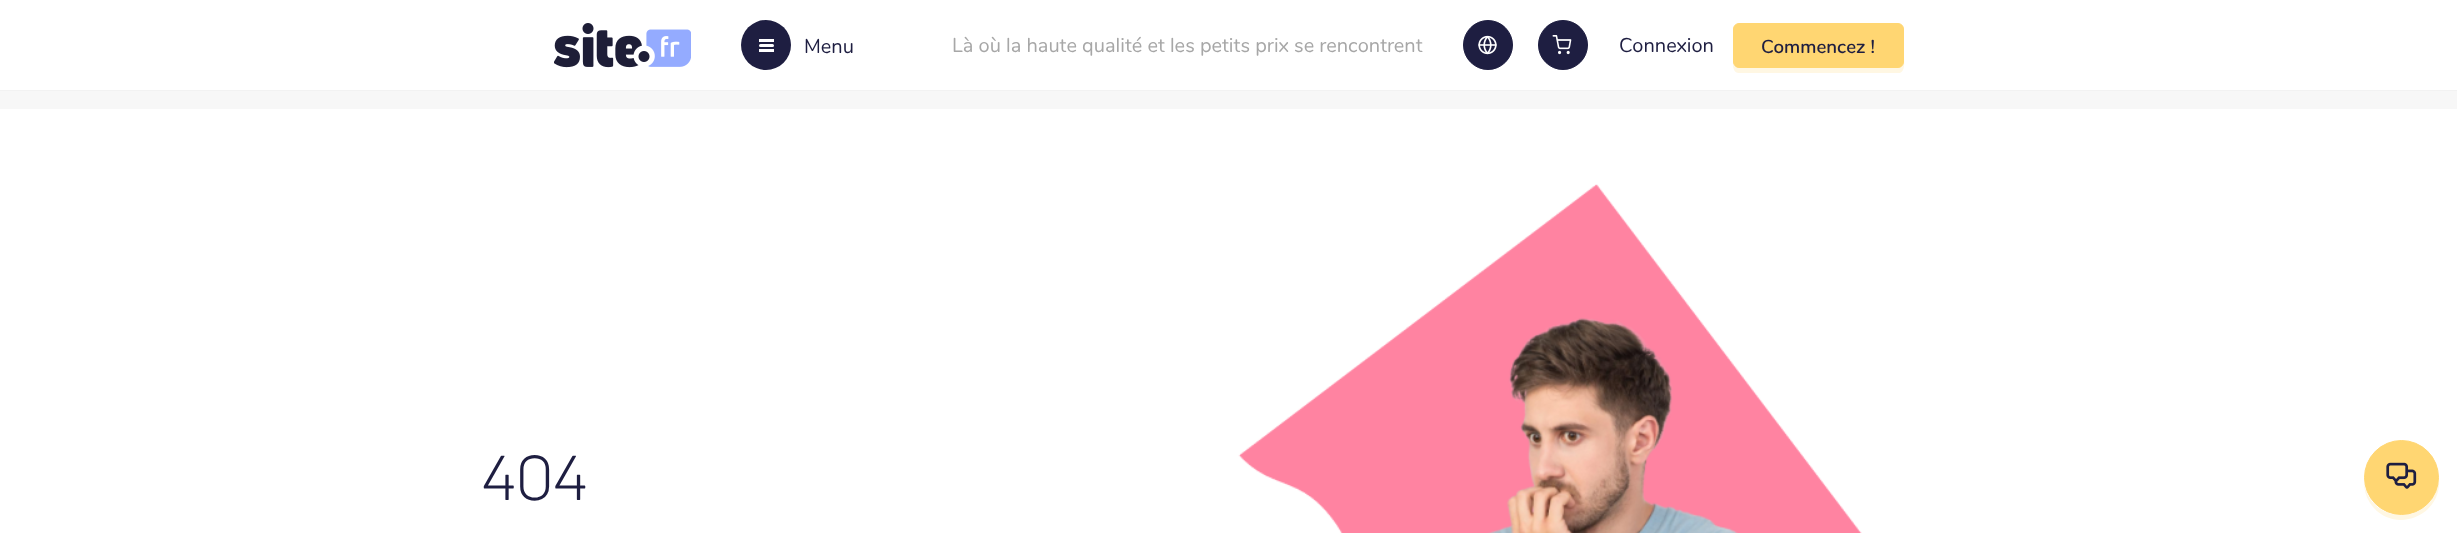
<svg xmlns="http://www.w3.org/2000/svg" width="2457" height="533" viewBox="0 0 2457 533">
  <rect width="100%" height="100%" fill="rgb(255,255,255)"/>
  <path d="M0 91V109H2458V18V91Z" fill="rgb(247,247,247)"/>
  <rect x="0" y="90" width="2457" height="1" fill="rgb(242,242,242)"/>
  <image x="554" y="23" width="137" height="45" href="pic1.png"/>
  <circle cx="766" cy="45" r="25" fill="rgb(30,30,65)"/>
  <rect x="759" y="44" width="15" height="3" rx="1.5" fill="rgb(255,255,255)"/>
  <rect x="759" y="39" width="15" height="3" fill="rgb(255,255,255)"/>
  <rect x="759" y="49" width="15" height="3" fill="rgb(255,255,255)"/>
  <text x="804" y="53" font-family="Nunito" font-size="20" fill="rgb(30,30,65)">Menu</text>
  <text x="952" y="52" font-family="Nunito" font-size="20" fill="rgb(167,167,167)">Là où la haute qualité et les petits prix se rencontrent</text>
  <circle cx="1488" cy="45" r="24.5" fill="rgb(30,30,65)" stroke="rgb(30,30,65)"/>
  <image x="1478" y="35" width="19" height="20" href="pic2.png"/>
  <circle cx="1563" cy="45" r="24.5" fill="rgb(30,30,65)" stroke="rgb(30,30,65)"/>
  <image x="1552" y="35" width="20" height="20" href="pic3.png"/>
  <text x="1619" y="52" font-family="Nunito" font-size="20" fill="rgb(30,30,65)">Connexion</text>
  <path d="M1733 64C1733 68 1734 73 1739 73H1898C1906 73 1904 61 1904 56V32V61C1904 65 1901 68 1898 68H1739C1736 68 1734 66 1733 64Z" fill="rgb(255,247,227)"/>
  <rect x="1733.5" y="23.5" width="170" height="44" rx="5.5" fill="rgb(255,214,114)" stroke="rgb(255,214,114)"/>
  <text x="1761" y="53" font-family="Nunito" font-size="18.75" font-weight="600" fill="rgb(30,30,65)">Commencez !</text>
  <text x="482" y="500" font-family="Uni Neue" font-size="62" fill="rgb(30,30,65)">404</text>
  <image x="1238" y="184" width="624" height="349" href="pic4.png"/>
  <path d="M2364 482C2364 490 2366 497 2370 503C2392 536 2443 517 2439 478C2438 499 2422 515 2401 515C2382 515 2366 501 2364 482Z" fill="rgb(255,247,227)"/>
  <circle cx="2401.5" cy="477.5" r="37" fill="rgb(255,214,114)" stroke="rgb(255,214,114)"/>
  <image x="2386" y="462" width="31" height="27" href="pic5.png"/>
</svg>
